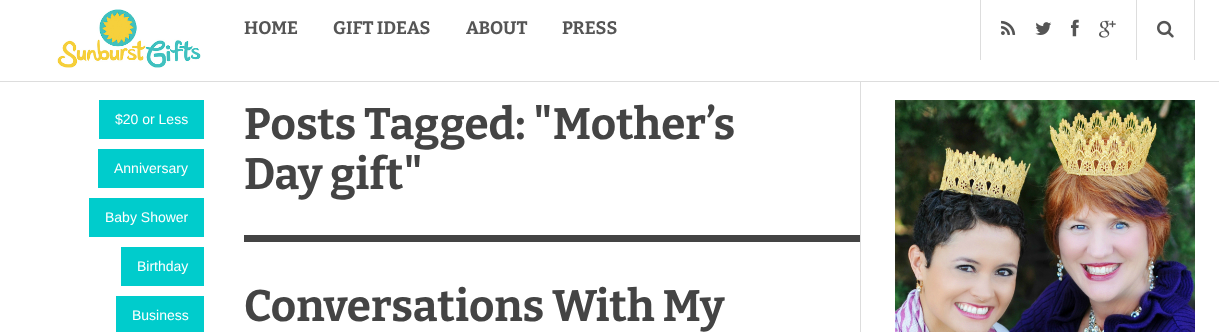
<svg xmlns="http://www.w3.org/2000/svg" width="1219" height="332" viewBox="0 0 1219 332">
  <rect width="100%" height="100%" fill="rgb(255,255,255)"/>
  <rect x="0" y="81" width="1219" height="1" fill="rgb(221,221,221)"/>
  <image x="57" y="9" width="144" height="59" href="pic1.png"/>
  <g font-family="Bitter" font-size="18" font-weight="bold" fill="rgb(85,85,85)">
    <text x="244" y="34">HOME</text>
    <text x="333" y="34">GIFT IDEAS</text>
    <text x="466" y="34">ABOUT</text>
    <text x="562" y="34">PRESS</text>
  </g>
  <rect x="980" y="0" width="1" height="60" fill="rgb(221,221,221)"/>
  <image x="1001" y="20" width="15" height="15" href="pic2.png"/>
  <image x="1035" y="22" width="17" height="13" href="pic3.png"/>
  <image x="1071" y="19" width="8" height="18" href="pic4.png"/>
  <image x="1099" y="20" width="17" height="18" href="pic5.png"/>
  <rect x="1194" y="0" width="1" height="60" fill="rgb(221,221,221)"/>
  <rect x="1136" y="0" width="1" height="60" fill="rgb(221,221,221)"/>
  <image x="1157" y="20" width="17" height="18" href="pic6.png"/>
  <rect x="860" y="82" width="1" height="250" fill="rgb(221,221,221)"/>
  <rect x="99" y="100" width="105" height="39" fill="rgb(0,204,204)"/>
  <text x="115" y="124" font-family="Liberation Sans" font-size="14" fill="rgb(255,255,255)">$20 or Less</text>
  <rect x="98" y="149" width="106" height="39" fill="rgb(0,204,204)"/>
  <text x="114" y="173" font-family="Liberation Sans" font-size="14" fill="rgb(255,255,255)">Anniversary</text>
  <rect x="89" y="198" width="115" height="39" fill="rgb(0,204,204)"/>
  <text x="105" y="222" font-family="Liberation Sans" font-size="14" fill="rgb(255,255,255)">Baby Shower</text>
  <rect x="121" y="247" width="83" height="39" fill="rgb(0,204,204)"/>
  <text x="137" y="271" font-family="Liberation Sans" font-size="14" fill="rgb(255,255,255)">Birthday</text>
  <rect x="116" y="296" width="88" height="36" fill="rgb(0,204,204)"/>
  <text x="132" y="320" font-family="Liberation Sans" font-size="14" fill="rgb(255,255,255)">Business</text>
  <rect x="244" y="235" width="616" height="7" fill="rgb(68,68,68)"/>
  <g font-family="Bitter" font-size="44" font-weight="bold" fill="rgb(68,68,68)">
    <text>
      <tspan x="244" y="139">Posts Tagged: "Mother’s</tspan>
      <tspan x="244" y="189">Day gift"</tspan>
    </text>
    <text x="244" y="321">Conversations With My</text>
  </g>
  <image x="895" y="100" width="300" height="232" href="pic7.png"/>
</svg>
